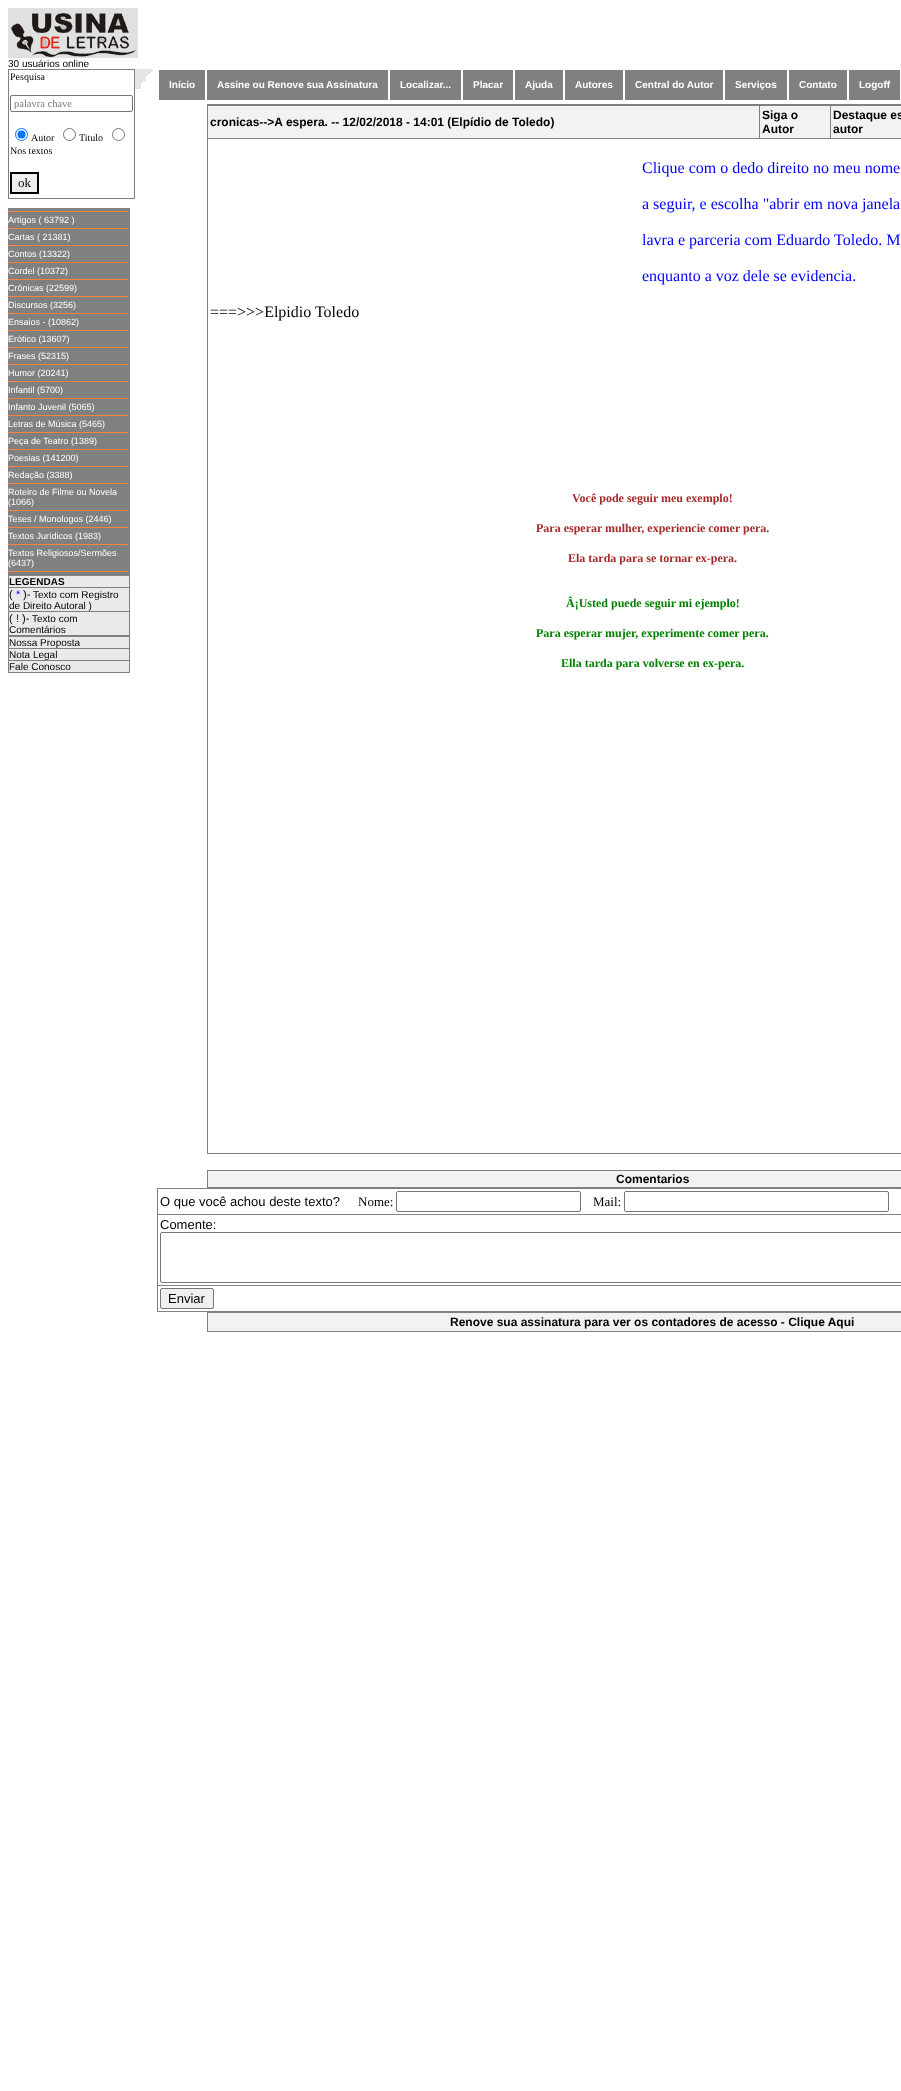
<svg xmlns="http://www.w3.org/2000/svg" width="901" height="2091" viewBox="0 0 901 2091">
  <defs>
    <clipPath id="clip1"><rect x="14" y="98" width="115" height="11"/></clipPath>
  </defs>
  <rect width="100%" height="100%" fill="rgb(255,255,255)"/>
  <image x="8" y="8" width="130" height="50" href="pic1.png"/>
  <text x="8" y="67" font-family="Liberation Sans" font-size="10" fill="rgb(0,0,0)">30 usuários online</text>
  <rect x="8" y="69" width="127" height="1" fill="rgb(128,128,128)"/>
  <rect x="134" y="69" width="1" height="130" fill="rgb(128,128,128)"/>
  <rect x="8" y="198" width="127" height="1" fill="rgb(128,128,128)"/>
  <rect x="8" y="69" width="1" height="130" fill="rgb(128,128,128)"/>
  <text x="10" y="80" font-family="Liberation Serif" font-size="10" fill="rgb(0,0,0)">Pesquisa</text>
  <rect x="10.5" y="95.5" width="122" height="16" rx="1.5" fill="none" stroke="rgb(118,118,118)"/>
  <g clip-path="url(#clip1)">
    <text x="14" y="107" font-family="Liberation Serif" font-size="10.5" fill="rgb(117,117,117)">palavra chave</text>
  </g>
  <circle cx="21.5" cy="134.5" r="6" fill="none" stroke="rgb(0,117,255)"/>
  <circle cx="21.5" cy="134.5" r="4" fill="rgb(0,117,255)"/>
  <text x="31" y="141" font-family="Liberation Serif" font-size="10" fill="rgb(0,0,0)">Autor</text>
  <circle cx="69.5" cy="134.5" r="6" fill="none" stroke="rgb(118,118,118)"/>
  <text x="79" y="141" font-family="Liberation Serif" font-size="10" fill="rgb(0,0,0)">Titulo</text>
  <circle cx="118.5" cy="134.5" r="6" fill="none" stroke="rgb(118,118,118)"/>
  <text x="10" y="154" font-family="Liberation Serif" font-size="10" fill="rgb(0,0,0)">Nos textos</text>
  <rect x="11" y="173" width="27" height="20" fill="rgb(239,239,239)" stroke="rgb(0,0,0)" stroke-width="2"/>
  <text x="18" y="187" font-family="Liberation Serif" font-size="13" fill="rgb(0,0,0)">ok</text>
  <rect x="8" y="208" width="122" height="368" fill="rgb(128,128,128)"/>
  <text x="8" y="223" font-family="Liberation Sans" font-size="9" fill="rgb(255,255,255)">Artigos ( 63792 )</text>
  <rect x="8" y="211" width="120" height="1" fill="rgb(254,129,63)"/>
  <rect x="8" y="228" width="120" height="1" fill="rgb(254,129,63)"/>
  <text x="8" y="240" font-family="Liberation Sans" font-size="9" fill="rgb(255,255,255)">Cartas ( 21381)</text>
  <rect x="8" y="245" width="120" height="1" fill="rgb(254,129,63)"/>
  <text x="8" y="257" font-family="Liberation Sans" font-size="9" fill="rgb(255,255,255)">Contos (13322)</text>
  <rect x="8" y="262" width="120" height="1" fill="rgb(254,129,63)"/>
  <text x="8" y="274" font-family="Liberation Sans" font-size="9" fill="rgb(255,255,255)">Cordel (10372)</text>
  <rect x="8" y="279" width="120" height="1" fill="rgb(254,129,63)"/>
  <text x="8" y="291" font-family="Liberation Sans" font-size="9" fill="rgb(255,255,255)">Crônicas (22599)</text>
  <rect x="8" y="296" width="120" height="1" fill="rgb(254,129,63)"/>
  <text x="8" y="308" font-family="Liberation Sans" font-size="9" fill="rgb(255,255,255)">Discursos (3256)</text>
  <rect x="8" y="313" width="120" height="1" fill="rgb(254,129,63)"/>
  <text x="8" y="325" font-family="Liberation Sans" font-size="9" fill="rgb(255,255,255)">Ensaios - (10862)</text>
  <rect x="8" y="330" width="120" height="1" fill="rgb(254,129,63)"/>
  <text x="8" y="342" font-family="Liberation Sans" font-size="9" fill="rgb(255,255,255)">Erótico (13607)</text>
  <rect x="8" y="347" width="120" height="1" fill="rgb(254,129,63)"/>
  <text x="8" y="359" font-family="Liberation Sans" font-size="9" fill="rgb(255,255,255)">Frases (52315)</text>
  <rect x="8" y="364" width="120" height="1" fill="rgb(254,129,63)"/>
  <text x="8" y="376" font-family="Liberation Sans" font-size="9" fill="rgb(255,255,255)">Humor (20241)</text>
  <rect x="8" y="381" width="120" height="1" fill="rgb(254,129,63)"/>
  <text x="8" y="393" font-family="Liberation Sans" font-size="9" fill="rgb(255,255,255)">Infantil (5700)</text>
  <rect x="8" y="398" width="120" height="1" fill="rgb(254,129,63)"/>
  <text x="8" y="410" font-family="Liberation Sans" font-size="9" fill="rgb(255,255,255)">Infanto Juvenil (5065)</text>
  <rect x="8" y="415" width="120" height="1" fill="rgb(254,129,63)"/>
  <text x="8" y="427" font-family="Liberation Sans" font-size="9" fill="rgb(255,255,255)">Letras de Música (5465)</text>
  <rect x="8" y="432" width="120" height="1" fill="rgb(254,129,63)"/>
  <text x="8" y="444" font-family="Liberation Sans" font-size="9" fill="rgb(255,255,255)">Peça de Teatro (1389)</text>
  <rect x="8" y="449" width="120" height="1" fill="rgb(254,129,63)"/>
  <text x="8" y="461" font-family="Liberation Sans" font-size="9" fill="rgb(255,255,255)">Poesias (141200)</text>
  <rect x="8" y="466" width="120" height="1" fill="rgb(254,129,63)"/>
  <text x="8" y="478" font-family="Liberation Sans" font-size="9" fill="rgb(255,255,255)">Redação (3388)</text>
  <rect x="8" y="483" width="120" height="1" fill="rgb(254,129,63)"/>
  <g font-family="Liberation Sans" font-size="9" fill="rgb(255,255,255)">
    <text>
      <tspan x="8" y="495">Roteiro de Filme ou Novela</tspan>
      <tspan x="8" y="505">(1066)</tspan>
    </text>
  </g>
  <rect x="8" y="510" width="120" height="1" fill="rgb(254,129,63)"/>
  <text x="8" y="522" font-family="Liberation Sans" font-size="9" fill="rgb(255,255,255)">Teses / Monologos (2446)</text>
  <rect x="8" y="527" width="120" height="1" fill="rgb(254,129,63)"/>
  <text x="8" y="539" font-family="Liberation Sans" font-size="9" fill="rgb(255,255,255)">Textos Jurídicos (1983)</text>
  <rect x="8" y="544" width="120" height="1" fill="rgb(254,129,63)"/>
  <g font-family="Liberation Sans" font-size="9" fill="rgb(255,255,255)">
    <text>
      <tspan x="8" y="556">Textos Religiosos/Sermões</tspan>
      <tspan x="8" y="566">(6437)</tspan>
    </text>
  </g>
  <rect x="8" y="571" width="120" height="1" fill="rgb(254,129,63)"/>
  <rect x="129" y="575" width="1" height="61" fill="rgb(128,128,128)"/>
  <rect x="8" y="635" width="122" height="2" fill="rgb(128,128,128)"/>
  <rect x="8" y="575" width="1" height="61" fill="rgb(128,128,128)"/>
  <rect x="9" y="576" width="120" height="11" fill="rgb(234,234,234)"/>
  <text x="9" y="585" font-family="Liberation Sans" font-size="10" font-weight="bold" fill="rgb(0,0,0)">LEGENDAS</text>
  <rect x="9" y="588" width="120" height="23" fill="rgb(234,234,234)"/>
  <rect x="8" y="587" width="122" height="1" fill="rgb(128,128,128)"/>
  <text x="9" y="598" font-family="Liberation Sans" font-size="11" fill="rgb(0,0,0)">(</text>
  <text x="16" y="598" font-family="Liberation Sans" font-size="11" fill="rgb(0,0,255)">*</text>
  <text x="23" y="598" font-family="Liberation Sans" font-size="11" fill="rgb(0,0,0)">)-</text>
  <text x="33" y="598" font-family="Liberation Sans" font-size="10" fill="rgb(0,0,0)">Texto com Registro</text>
  <rect x="8" y="611" width="122" height="1" fill="rgb(128,128,128)"/>
  <text x="9" y="609" font-family="Liberation Sans" font-size="10" fill="rgb(0,0,0)">de Direito Autoral )</text>
  <rect x="9" y="612" width="120" height="23" fill="rgb(234,234,234)"/>
  <text x="9" y="622" font-family="Liberation Sans" font-size="11" fill="rgb(0,0,0)">(</text>
  <text x="16" y="622" font-family="Liberation Sans" font-size="11" fill="rgb(0,0,255)">!</text>
  <text x="22" y="622" font-family="Liberation Sans" font-size="11" fill="rgb(0,0,0)">)-</text>
  <g font-family="Liberation Sans" font-size="10" fill="rgb(0,0,0)">
    <text x="32" y="622">Texto com</text>
    <text x="9" y="633">Comentários</text>
  </g>
  <rect x="129" y="636" width="1" height="37" fill="rgb(128,128,128)"/>
  <rect x="8" y="672" width="122" height="1" fill="rgb(128,128,128)"/>
  <rect x="8" y="636" width="1" height="37" fill="rgb(128,128,128)"/>
  <rect x="9" y="637" width="120" height="11" fill="rgb(234,234,234)"/>
  <rect x="8" y="648" width="122" height="1" fill="rgb(128,128,128)"/>
  <text x="9" y="646" font-family="Liberation Sans" font-size="10" fill="rgb(0,0,0)">Nossa Proposta</text>
  <rect x="9" y="649" width="120" height="11" fill="rgb(234,234,234)"/>
  <rect x="8" y="660" width="122" height="1" fill="rgb(128,128,128)"/>
  <text x="9" y="658" font-family="Liberation Sans" font-size="10" fill="rgb(0,0,0)">Nota Legal</text>
  <rect x="9" y="661" width="120" height="11" fill="rgb(234,234,234)"/>
  <text x="9" y="670" font-family="Liberation Sans" font-size="10" fill="rgb(0,0,0)">Fale Conosco</text>
  <image x="135" y="69" width="18" height="20" href="pic2.png"/>
  <rect x="159" y="70" width="741" height="30" fill="rgb(128,128,128)"/>
  <rect x="205" y="70" width="2" height="30" fill="rgb(255,255,255)"/>
  <text x="169" y="88" font-family="Liberation Sans" font-size="10" font-weight="bold" fill="rgb(255,255,255)">Início</text>
  <rect x="388" y="70" width="2" height="30" fill="rgb(255,255,255)"/>
  <text x="217" y="88" font-family="Liberation Sans" font-size="10" font-weight="bold" fill="rgb(255,255,255)">Assine ou Renove sua Assinatura</text>
  <rect x="461" y="70" width="2" height="30" fill="rgb(255,255,255)"/>
  <text x="400" y="88" font-family="Liberation Sans" font-size="10" font-weight="bold" fill="rgb(255,255,255)">Localizar...</text>
  <rect x="513" y="70" width="2" height="30" fill="rgb(255,255,255)"/>
  <text x="473" y="88" font-family="Liberation Sans" font-size="10" font-weight="bold" fill="rgb(255,255,255)">Placar</text>
  <rect x="563" y="70" width="2" height="30" fill="rgb(255,255,255)"/>
  <text x="525" y="88" font-family="Liberation Sans" font-size="10" font-weight="bold" fill="rgb(255,255,255)">Ajuda</text>
  <rect x="623" y="70" width="2" height="30" fill="rgb(255,255,255)"/>
  <text x="575" y="88" font-family="Liberation Sans" font-size="10" font-weight="bold" fill="rgb(255,255,255)">Autores</text>
  <rect x="723" y="70" width="2" height="30" fill="rgb(255,255,255)"/>
  <text x="635" y="88" font-family="Liberation Sans" font-size="10" font-weight="bold" fill="rgb(255,255,255)">Central do Autor</text>
  <rect x="787" y="70" width="2" height="30" fill="rgb(255,255,255)"/>
  <text x="735" y="88" font-family="Liberation Sans" font-size="10" font-weight="bold" fill="rgb(255,255,255)">Serviços</text>
  <rect x="847" y="70" width="2" height="30" fill="rgb(255,255,255)"/>
  <g font-family="Liberation Sans" font-size="10" font-weight="bold" fill="rgb(255,255,255)">
    <text x="799" y="88">Contato</text>
    <text x="859" y="88">Logoff</text>
  </g>
  <rect x="207" y="104" width="694" height="2" fill="rgb(128,128,128)"/>
  <rect x="207" y="1153" width="694" height="1" fill="rgb(128,128,128)"/>
  <rect x="207" y="105" width="1" height="1049" fill="rgb(128,128,128)"/>
  <rect x="208" y="106" width="551" height="32" fill="rgb(242,242,242)"/>
  <text x="210" y="126" font-family="Liberation Sans" font-size="12" font-weight="bold" fill="rgb(0,0,0)">cronicas--&gt;A espera. -- 12/02/2018 - 14:01 (Elpídio de Toledo)</text>
  <rect x="760" y="106" width="70" height="32" fill="rgb(242,242,242)"/>
  <rect x="207" y="138" width="694" height="1" fill="rgb(128,128,128)"/>
  <rect x="759" y="105" width="1" height="34" fill="rgb(128,128,128)"/>
  <g font-family="Liberation Sans" font-size="12" font-weight="bold" fill="rgb(0,0,0)">
    <text>
      <tspan x="762" y="119">Siga o</tspan>
      <tspan x="762" y="133">Autor</tspan>
    </text>
  </g>
  <rect x="831" y="106" width="70" height="32" fill="rgb(242,242,242)"/>
  <rect x="830" y="105" width="1" height="34" fill="rgb(128,128,128)"/>
  <g font-family="Liberation Sans" font-size="12" font-weight="bold" fill="rgb(0,0,0)">
    <text>
      <tspan x="833" y="119">Destaque es</tspan>
      <tspan x="833" y="133">autor</tspan>
    </text>
  </g>
  <g font-family="Liberation Serif" font-size="16" fill="rgb(0,0,255)">
    <text x="642" y="173">Clique com o dedo direito no meu nome</text>
    <text x="642" y="209">a seguir, e escolha "abrir em nova janela</text>
    <text x="642" y="245">lavra e parceria com Eduardo Toledo. M</text>
    <text x="642" y="281">enquanto a voz dele se evidencia.</text>
  </g>
  <text x="210" y="317" font-family="Liberation Serif" font-size="16" fill="rgb(0,0,0)">===&gt;&gt;&gt;Elpidio Toledo</text>
  <g font-family="Liberation Serif" font-size="12" font-weight="bold" fill="rgb(165,42,42)">
    <text x="572" y="502">Você pode seguir meu exemplo!</text>
    <text x="536" y="532">Para esperar mulher, experiencie comer pera.</text>
    <text x="568" y="562">Ela tarda para se tornar ex-pera.</text>
  </g>
  <g font-family="Liberation Serif" font-size="12" font-weight="bold" fill="rgb(0,128,0)">
    <text x="566" y="607">Â¡Usted puede seguir mi ejemplo!</text>
    <text x="536" y="637">Para esperar mujer, experimente comer pera.</text>
    <text x="561" y="667">Ella tarda para volverse en ex-pera.</text>
  </g>
  <rect x="207" y="1170" width="694" height="1" fill="rgb(128,128,128)"/>
  <rect x="207" y="1187" width="694" height="1" fill="rgb(128,128,128)"/>
  <rect x="207" y="1170" width="1" height="18" fill="rgb(128,128,128)"/>
  <rect x="208" y="1171" width="693" height="16" fill="rgb(242,242,242)"/>
  <text x="616" y="1183" font-family="Liberation Sans" font-size="12" font-weight="bold" fill="rgb(0,0,0)">Comentarios</text>
  <rect x="157" y="1188" width="744" height="1" fill="rgb(128,128,128)"/>
  <rect x="157" y="1311" width="744" height="1" fill="rgb(128,128,128)"/>
  <rect x="157" y="1188" width="1" height="124" fill="rgb(128,128,128)"/>
  <text x="160" y="1206" font-family="Liberation Sans" font-size="13" fill="rgb(0,0,0)">O que você achou deste texto?</text>
  <text x="358" y="1206" font-family="Liberation Serif" font-size="13" fill="rgb(0,0,0)">Nome:</text>
  <rect x="396.5" y="1191.5" width="184" height="20" rx="1.5" fill="none" stroke="rgb(118,118,118)"/>
  <text x="593" y="1206" font-family="Liberation Serif" font-size="13" fill="rgb(0,0,0)">Mail:</text>
  <rect x="624.5" y="1191.5" width="264" height="20" rx="1.5" fill="none" stroke="rgb(118,118,118)"/>
  <rect x="157" y="1214" width="744" height="1" fill="rgb(128,128,128)"/>
  <text x="160" y="1229" font-family="Liberation Sans" font-size="13" fill="rgb(0,0,0)">Comente:</text>
  <rect x="160.5" y="1232.5" width="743" height="50" rx="1.5" fill="none" stroke="rgb(118,118,118)"/>
  <rect x="157" y="1285" width="744" height="1" fill="rgb(128,128,128)"/>
  <rect x="160.5" y="1288.5" width="53" height="20" rx="1.5" fill="rgb(239,239,239)" stroke="rgb(118,118,118)"/>
  <text x="168" y="1303" font-family="Liberation Sans" font-size="13" fill="rgb(0,0,0)">Enviar</text>
  <rect x="207" y="1312" width="694" height="1" fill="rgb(128,128,128)"/>
  <rect x="207" y="1331" width="694" height="1" fill="rgb(128,128,128)"/>
  <rect x="207" y="1312" width="1" height="20" fill="rgb(128,128,128)"/>
  <rect x="208" y="1313" width="693" height="18" fill="rgb(242,242,242)"/>
  <text x="450" y="1326" font-family="Liberation Sans" font-size="12" font-weight="bold" fill="rgb(0,0,0)">Renove sua assinatura para ver os contadores de acesso - Clique Aqui</text>
</svg>
